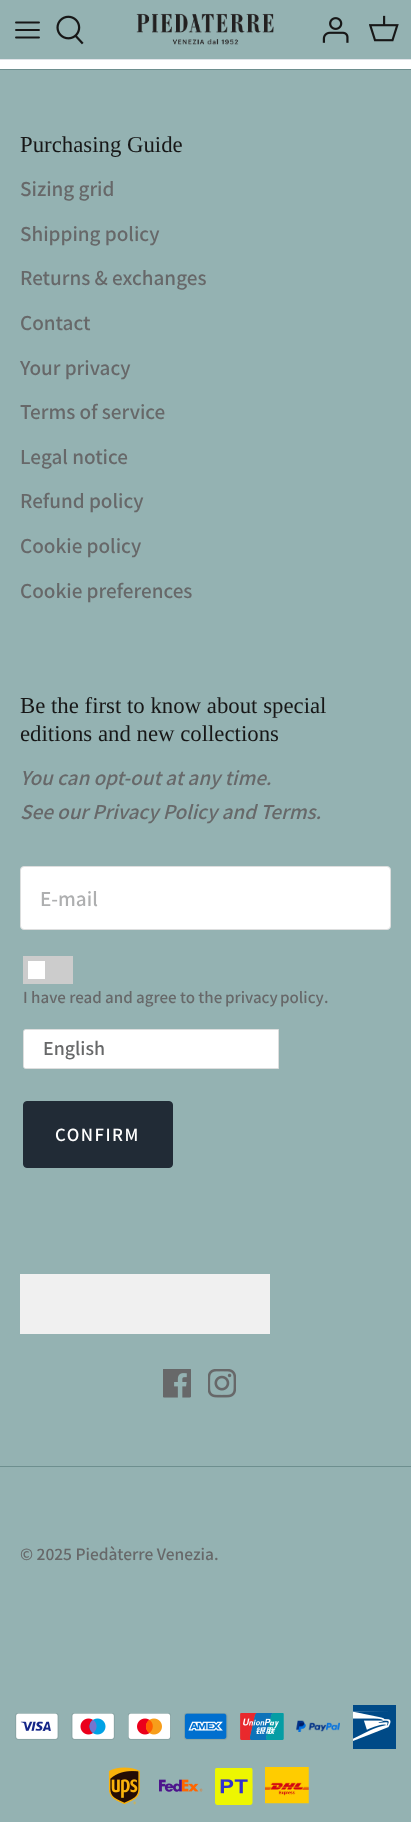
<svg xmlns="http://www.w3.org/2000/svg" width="411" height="1822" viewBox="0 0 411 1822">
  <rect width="100%" height="100%" fill="rgb(255,255,255)"/>
  <rect x="0" y="0" width="411" height="59" fill="rgb(148,178,178)"/>
  <rect x="0" y="59" width="411" height="1" fill="rgb(223,227,232)"/>
  <path d="M16 30H39M16 22.5H39M16 37.5H39" fill="none" stroke="rgb(23,23,23)" stroke-width="1.9" stroke-linecap="round" stroke-linejoin="round"/>
  <image x="56" y="15" width="28" height="30" href="pic1.png"/>
  <image x="136" y="13" width="138" height="32" href="pic2.png"/>
  <image x="322" y="17" width="27" height="26" href="pic3.png"/>
  <image x="369" y="15" width="30" height="27" href="pic4.png"/>
  <rect x="0" y="70" width="411" height="1752" fill="rgb(148,178,178)"/>
  <rect x="0" y="69" width="411" height="1" fill="rgb(110,143,143)"/>
  <text x="20" y="152" font-family="Liberation Serif" font-size="22.8" fill="rgb(23,23,23)">Purchasing Guide</text>
  <g font-family="Assistant" font-size="21.25" font-weight="600" fill="rgb(103,104,105)">
    <text x="20" y="196">Sizing grid</text>
    <text x="20" y="241">Shipping policy</text>
    <text x="20" y="285">Returns &amp; exchanges</text>
    <text x="20" y="330">Contact</text>
    <text x="20" y="375">Your privacy</text>
    <text x="20" y="419">Terms of service</text>
    <text x="20" y="464">Legal notice</text>
    <text x="20" y="508">Refund policy</text>
    <text x="20" y="553">Cookie policy</text>
    <text x="20" y="598">Cookie preferences</text>
  </g>
  <g font-family="Liberation Serif" font-size="22.8" fill="rgb(23,23,23)">
    <text>
      <tspan x="20" y="713">Be the first to know about special</tspan>
      <tspan x="20" y="741">editions and new collections</tspan>
    </text>
  </g>
  <g font-family="Assistant" font-size="21.25" font-weight="600" font-style="italic" fill="rgb(103,104,105)">
    <text>
      <tspan x="20" y="785">You can opt-out at any time.</tspan>
      <tspan x="20" y="819">See our Privacy Policy and Terms.</tspan>
    </text>
  </g>
  <rect x="20.5" y="866.5" width="370" height="63" rx="3.5" fill="rgb(255,255,255)" stroke="rgb(221,222,222)"/>
  <text x="40" y="906" font-family="Assistant" font-size="21.25" font-weight="600" fill="rgb(174,175,176)">E-mail</text>
  <rect x="23" y="956" width="50" height="28" fill="rgb(204,204,204)"/>
  <rect x="28" y="961" width="17" height="18" fill="rgb(255,255,255)"/>
  <g font-family="Assistant" font-size="17" font-weight="600" fill="rgb(103,104,105)">
    <text x="23" y="1003">I have read and agree to the</text>
    <text x="225" y="1003" word-spacing="-1">privacy policy</text>
    <text x="324" y="1003">.</text>
  </g>
  <path d="M25.5 1029.5H278.5V1068.5H25.5C24.5 1068.5 23.5 1067.5 23.5 1066.5V1031.5C23.5 1030.5 24.5 1029.5 25.5 1029.5Z" fill="rgb(255,255,255)" stroke="rgb(221,222,222)"/>
  <text x="43" y="1055" font-family="Assistant" font-size="20" font-weight="600" fill="rgb(103,104,105)">English</text>
  <rect x="23.5" y="1101.5" width="149" height="66" rx="3.5" fill="rgb(33,43,54)" stroke="rgb(33,43,54)"/>
  <text x="55" y="1141" font-family="Assistant" font-size="18.75" font-weight="600" letter-spacing="1.5" fill="rgb(255,255,255)">CONFIRM</text>
  <rect x="20" y="1274" width="250" height="60" fill="rgb(240,240,240)"/>
  <image x="163" y="1369" width="28" height="29" href="pic5.png"/>
  <image x="208" y="1369" width="28" height="29" href="pic6.png"/>
  <rect x="0" y="1466" width="411" height="1" fill="rgb(110,143,143)"/>
  <text x="20" y="1560" font-family="Assistant" font-size="17.5" font-weight="600" fill="rgb(103,104,105)">© 2025 Piedàterre Venezia.</text>
  <image x="15" y="1713" width="44" height="27" href="pic7.png"/>
  <image x="71" y="1713" width="44" height="27" href="pic8.png"/>
  <image x="128" y="1713" width="43" height="27" href="pic9.png"/>
  <image x="184" y="1713" width="44" height="27" href="pic10.png"/>
  <image x="240" y="1713" width="44" height="27" href="pic11.png"/>
  <image x="296" y="1720" width="44" height="12" href="pic12.png"/>
  <image x="353" y="1705" width="43" height="44" href="pic13.png"/>
  <image x="108" y="1767" width="32" height="38" href="pic14.png"/>
  <image x="159" y="1779" width="44" height="13" href="pic15.png"/>
  <image x="215" y="1768" width="38" height="37" href="pic16.png"/>
  <image x="265" y="1767" width="44" height="37" href="pic17.png"/>
</svg>
